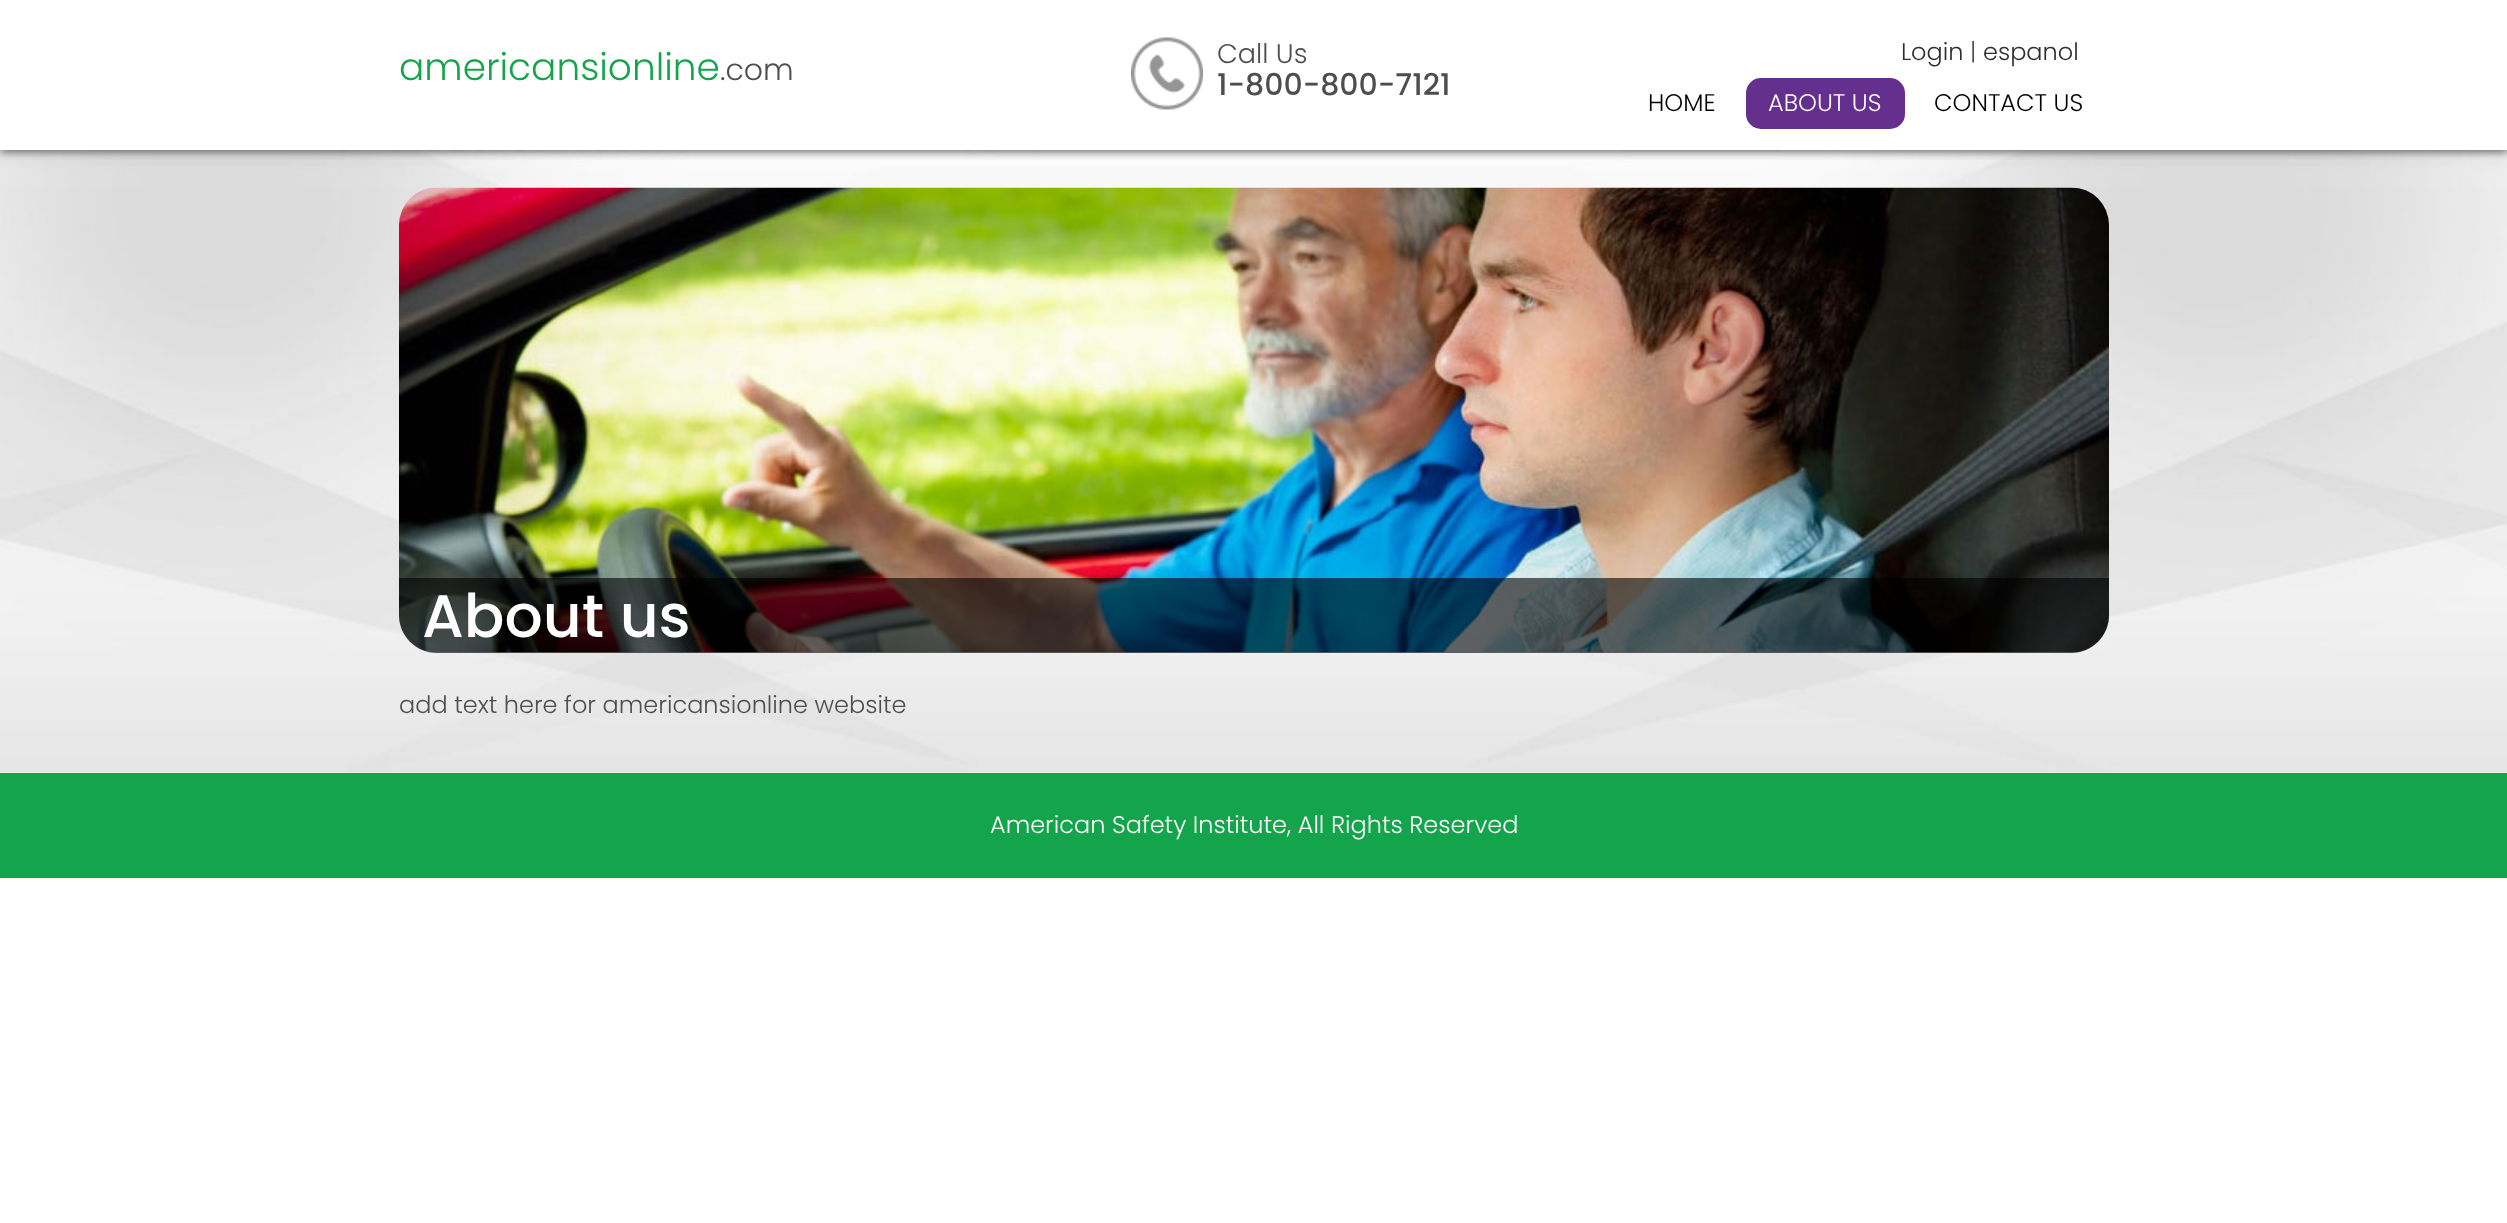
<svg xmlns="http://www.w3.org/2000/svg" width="2507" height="1223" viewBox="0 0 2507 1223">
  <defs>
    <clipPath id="clip1"><rect x="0" y="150" width="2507" height="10"/></clipPath>
  </defs>
  <rect width="100%" height="100%" fill="rgb(255,255,255)"/>
  <rect x="0" y="772" width="2507" height="1" fill="rgb(245,245,245)"/>
  <image x="0" y="150" width="2507" height="623" href="pic2.png"/>
  <g clip-path="url(#clip1)">
    <rect x="0" y="2" width="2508" height="150" fill="rgba(50,50,50,0.75)" filter="blur(4px)"/>
  </g>
  <text x="399" y="80" font-family="Poppins" font-size="37.5" font-weight="300" fill="rgb(20,164,76)">americansionline</text>
  <text x="720" y="80" font-family="Poppins" font-size="30" font-weight="300" fill="rgb(78,78,78)">.com</text>
  <image x="1131" y="37" width="72" height="73" href="pic1.png"/>
  <text x="1217" y="63" font-family="Poppins" font-size="27" font-weight="300" fill="rgb(78,78,78)">Call Us</text>
  <text x="1217" y="95" font-family="Poppins" font-size="30" font-weight="500" fill="rgb(78,78,78)">1-800-800-7121</text>
  <text x="1901" y="60" font-family="Poppins" font-size="24" font-weight="300" fill="rgb(46,46,46)">Login</text>
  <text x="1970" y="60" font-family="Poppins" font-size="24" font-weight="300" fill="rgb(78,78,78)">|</text>
  <text x="1983" y="60" font-family="Poppins" font-size="24" font-weight="300" fill="rgb(46,46,46)">espanol</text>
  <text x="1648" y="111" font-family="Poppins" font-size="24" font-weight="300" fill="rgb(0,0,0)">HOME</text>
  <rect x="1746" y="78" width="159" height="51" rx="15" fill="rgb(101,47,141)"/>
  <text x="1768" y="111" font-family="Poppins" font-size="24" font-weight="300" fill="rgb(255,255,255)">ABOUT US</text>
  <text x="1934" y="111" font-family="Poppins" font-size="24" font-weight="300" fill="rgb(0,0,0)">CONTACT US</text>
  <image x="399" y="187" width="1710" height="466" href="pic3.png"/>
  <path d="M399 578H2109V615.5C2109 636 2092 653 2071.5 653H436.5C416 653 399 636 399 615.5Z" fill="rgba(0,0,0,0.6)"/>
  <text x="422" y="637" font-family="Poppins" font-size="60" font-weight="500" fill="rgb(255,255,255)">About us</text>
  <text x="399" y="713" font-family="Poppins" font-size="24" font-weight="300" fill="rgb(78,78,78)">add text here for americansionline website</text>
  <rect x="0" y="773" width="2507" height="105" fill="rgb(20,164,76)"/>
  <text x="990" y="833" font-family="Poppins" font-size="24" font-weight="300" fill="rgb(255,255,255)">American Safety Institute, All Rights Reserved</text>
</svg>
